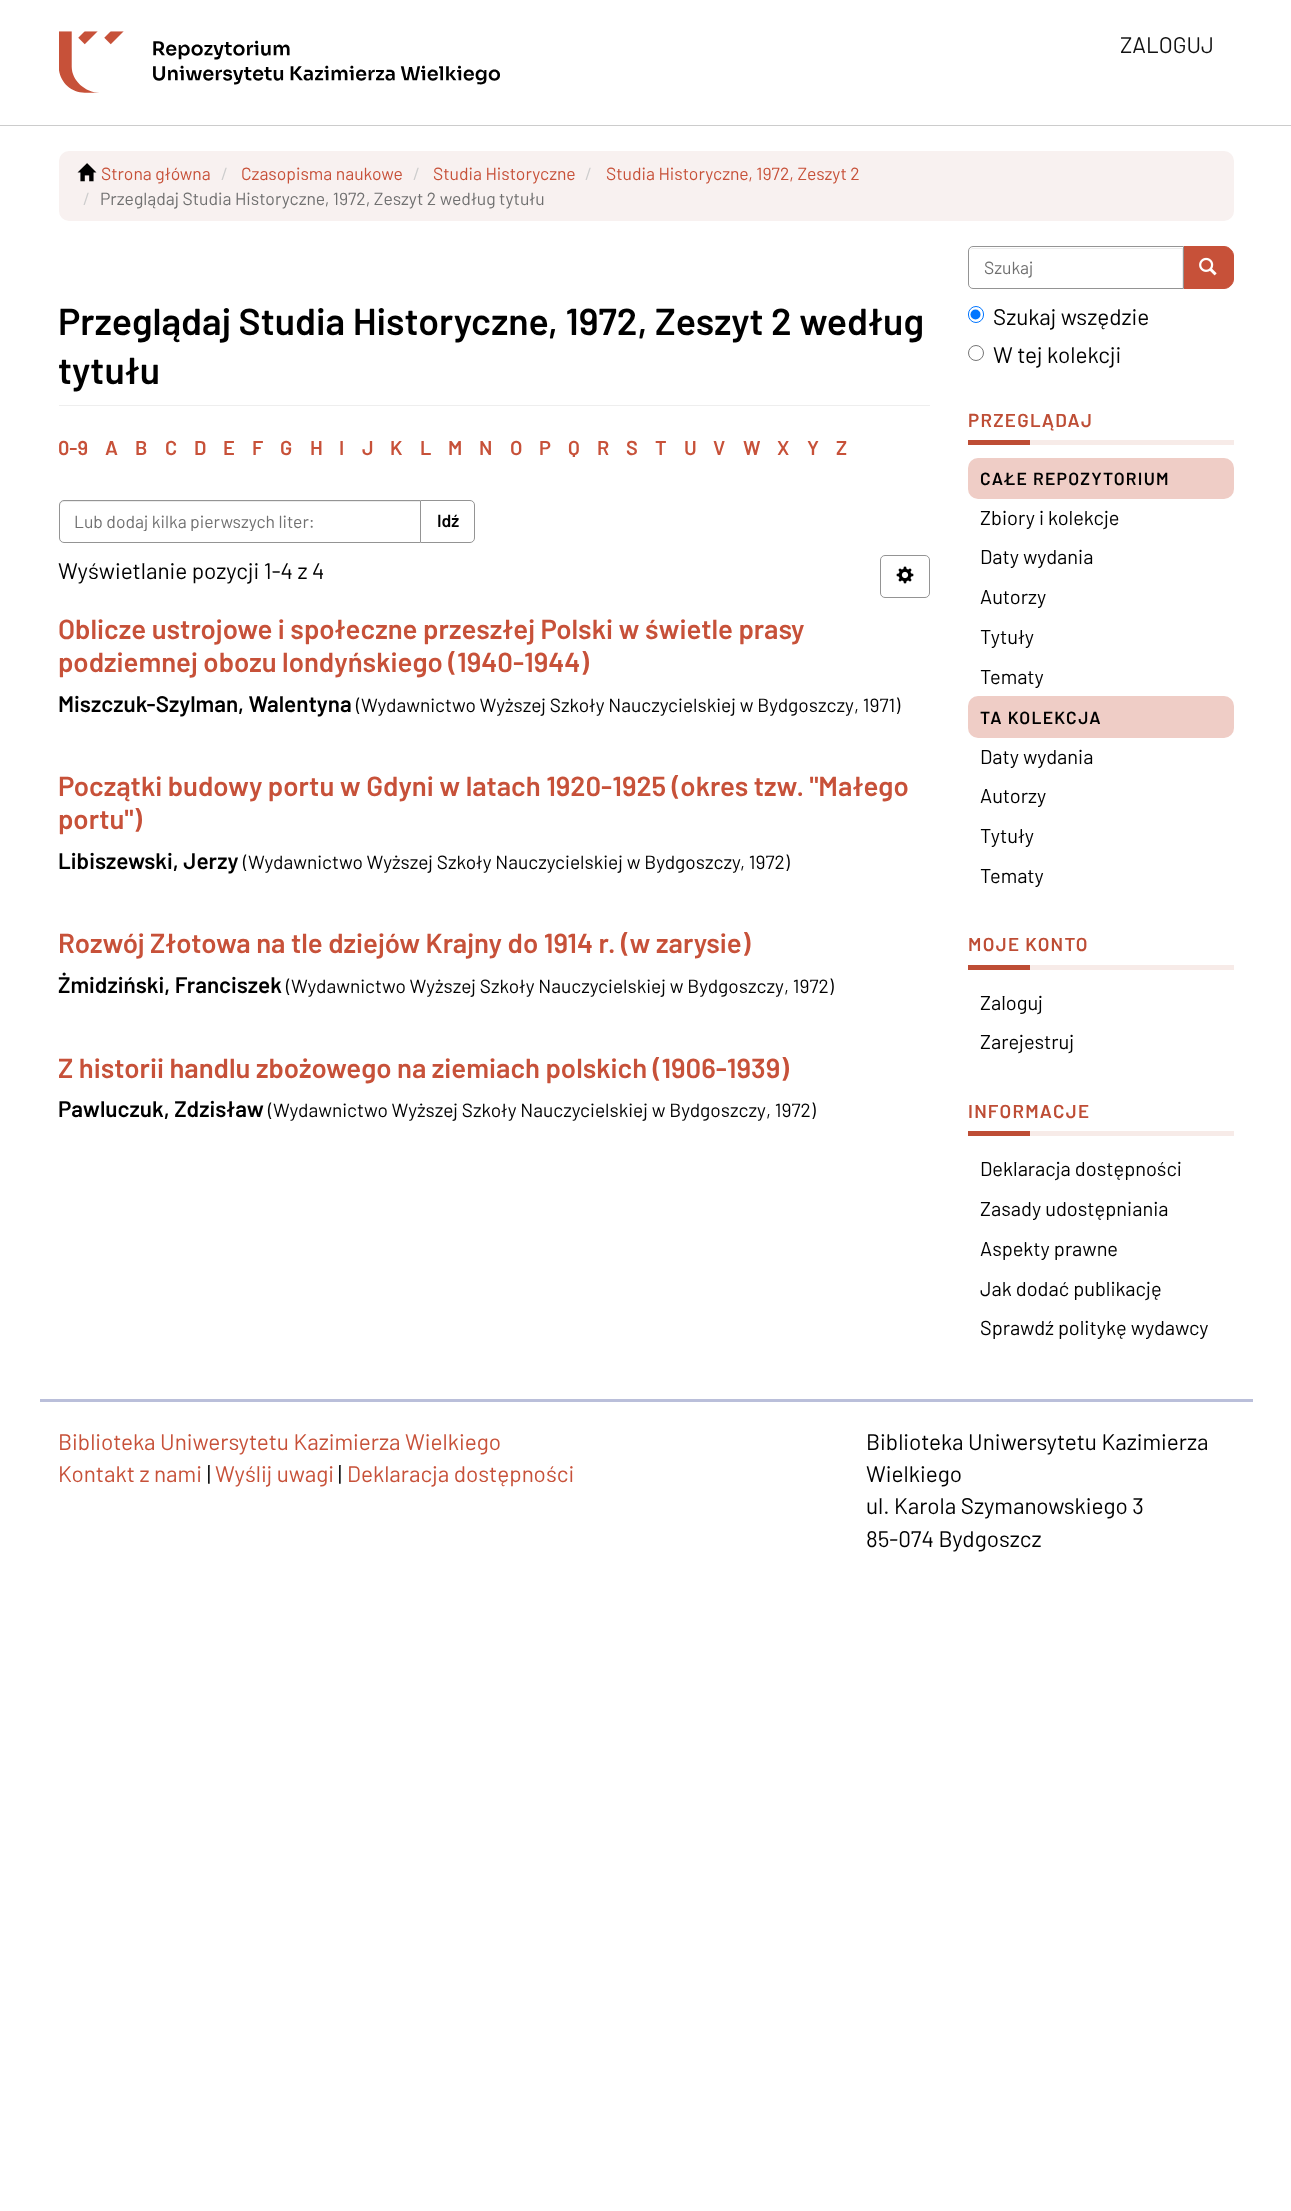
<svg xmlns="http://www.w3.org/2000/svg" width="1291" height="2211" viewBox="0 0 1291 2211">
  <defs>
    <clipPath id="clip1"><rect x="75" y="510" width="330" height="21"/></clipPath>
  </defs>
  <rect width="100%" height="100%" fill="rgb(255,255,255)"/>
  <rect x="0" y="125" width="1291" height="1" fill="rgb(204,204,204)"/>
  <image x="59" y="31" width="441" height="62" href="pic1.png"/>
  <text x="1120" y="53" font-family="Barlow" font-size="22.5" fill="rgb(17,17,17)">ZALOGUJ</text>
  <rect x="59" y="151" width="1175" height="70" rx="10" fill="rgb(248,241,240)"/>
  <image x="77" y="163" width="20" height="19" href="pic2.png"/>
  <text x="101" y="180" font-family="Barlow" font-size="17.5" fill="rgb(199,81,57)">Strona główna</text>
  <text x="221" y="180" font-family="Barlow" font-size="17.5" fill="rgb(204,204,204)">/</text>
  <text x="241" y="180" font-family="Barlow" font-size="17.5" fill="rgb(199,81,57)">Czasopisma naukowe</text>
  <text x="413" y="180" font-family="Barlow" font-size="17.5" fill="rgb(204,204,204)">/</text>
  <text x="433" y="180" font-family="Barlow" font-size="17.5" fill="rgb(199,81,57)">Studia Historyczne</text>
  <text x="585" y="180" font-family="Barlow" font-size="17.5" fill="rgb(204,204,204)">/</text>
  <text x="606" y="180" font-family="Barlow" font-size="17.5" fill="rgb(199,81,57)">Studia Historyczne, 1972, Zeszyt 2</text>
  <text x="83" y="205" font-family="Barlow" font-size="17.5" fill="rgb(204,204,204)">/</text>
  <text x="100" y="205" font-family="Barlow" font-size="17.5" fill="rgb(112,112,112)">Przeglądaj Studia Historyczne, 1972, Zeszyt 2 według tytułu</text>
  <rect x="59" y="405" width="871" height="1" fill="rgb(238,238,238)"/>
  <g font-family="Barlow" font-size="37.5" font-weight="600" fill="rgb(0,0,0)">
    <text>
      <tspan x="58" y="335">Przeglądaj Studia Historyczne, 1972, Zeszyt 2 według</tspan>
      <tspan x="58" y="384">tytułu</tspan>
    </text>
  </g>
  <g font-family="Barlow" font-size="20" font-weight="600" fill="rgb(199,81,57)">
    <text x="58" y="455">0-9</text>
    <text x="105" y="455">A</text>
    <text x="135" y="455">B</text>
    <text x="165" y="455">C</text>
    <text x="194" y="455">D</text>
    <text x="223" y="455">E</text>
    <text x="252" y="455">F</text>
    <text x="280" y="455">G</text>
    <text x="310" y="455">H</text>
    <text x="339" y="455">I</text>
    <text x="362" y="455">J</text>
    <text x="390" y="455">K</text>
    <text x="420" y="455">L</text>
    <text x="448" y="455">M</text>
    <text x="479" y="455">N</text>
    <text x="510" y="455">O</text>
    <text x="539" y="455">P</text>
    <text x="568" y="455">Q</text>
    <text x="597" y="455">R</text>
    <text x="626" y="455">S</text>
    <text x="655" y="455">T</text>
    <text x="684" y="455">U</text>
    <text x="713" y="455">V</text>
    <text x="743" y="455">W</text>
    <text x="777" y="455">X</text>
    <text x="807" y="455">Y</text>
    <text x="836" y="455">Z</text>
  </g>
  <path d="M420.5 500.5H470C472.5 500.5 474.5 502.5 474.5 505V538C474.5 540.5 472.5 542.5 470 542.5H420.5Z" fill="none" stroke="rgb(148,148,148)"/>
  <path d="M64 500H421V543H64C61 543 59 541 59 538V505C59 502 61 500 64 500Z" fill="rgb(255,255,255)"/>
  <path d="M64 502H420V501H64C61 501 60 503 60 506C60 504 62 502 64 502Z" fill="rgb(236,236,236)"/>
  <path d="M64 500.5H420.5V542.5H64C61.5 542.5 59.5 540.5 59.5 538V505C59.5 502.5 61.5 500.5 64 500.5Z" fill="none" stroke="rgb(148,148,148)"/>
  <g clip-path="url(#clip1)">
    <text x="74" y="528" font-family="Barlow" font-size="17.5" fill="rgb(112,112,112)">Lub dodaj kilka pierwszych liter:</text>
  </g>
  <text x="437" y="527" font-family="Barlow" font-size="17.5" font-weight="600" fill="rgb(0,0,0)">Idź</text>
  <text x="58" y="579" font-family="Barlow" font-size="22.5" fill="rgb(0,0,0)">Wyświetlanie pozycji 1-4 z 4</text>
  <rect x="880.5" y="555.5" width="49" height="42" rx="4.5" fill="none" stroke="rgb(148,148,148)"/>
  <image x="896" y="566" width="18" height="18" href="pic3.png"/>
  <g font-family="Barlow" font-size="27.5" font-weight="600" fill="rgb(199,81,57)">
    <text>
      <tspan x="58" y="639">Oblicze ustrojowe i społeczne przeszłej Polski w świetle prasy</tspan>
      <tspan x="58" y="672">podziemnej obozu londyńskiego (1940-1944)</tspan>
    </text>
  </g>
  <text x="58" y="712" font-family="Barlow" font-size="22.5" font-weight="600" fill="rgb(0,0,0)">Miszczuk-Szylman, Walentyna</text>
  <g font-family="Barlow" font-size="19.1" fill="rgb(0,0,0)">
    <text x="356" y="712">(</text>
    <text x="361" y="712">Wydawnictwo Wyższej Szkoły Nauczycielskiej w Bydgoszczy</text>
    <text x="854" y="712">, 1971)</text>
  </g>
  <g font-family="Barlow" font-size="27.5" font-weight="600" fill="rgb(199,81,57)">
    <text>
      <tspan x="58" y="796">Początki budowy portu w Gdyni w latach 1920-1925 (okres tzw. "Małego</tspan>
      <tspan x="58" y="829">portu")</tspan>
    </text>
  </g>
  <text x="58" y="869" font-family="Barlow" font-size="22.5" font-weight="600" fill="rgb(0,0,0)">Libiszewski, Jerzy</text>
  <g font-family="Barlow" font-size="19.1" fill="rgb(0,0,0)">
    <text x="243" y="869">(</text>
    <text x="248" y="869">Wydawnictwo Wyższej Szkoły Nauczycielskiej w Bydgoszczy</text>
    <text x="740" y="869">, 1972)</text>
  </g>
  <text x="58" y="953" font-family="Barlow" font-size="27.5" font-weight="600" fill="rgb(199,81,57)">Rozwój Złotowa na tle dziejów Krajny do 1914 r. (w zarysie)</text>
  <text x="58" y="993" font-family="Barlow" font-size="22.5" font-weight="600" fill="rgb(0,0,0)">Żmidziński, Franciszek</text>
  <g font-family="Barlow" font-size="19.1" fill="rgb(0,0,0)">
    <text x="286" y="993">(</text>
    <text x="291" y="993">Wydawnictwo Wyższej Szkoły Nauczycielskiej w Bydgoszczy</text>
    <text x="784" y="993">, 1972)</text>
  </g>
  <text x="58" y="1078" font-family="Barlow" font-size="27.5" font-weight="600" fill="rgb(199,81,57)">Z historii handlu zbożowego na ziemiach polskich (1906-1939)</text>
  <text x="58" y="1117" font-family="Barlow" font-size="22.5" font-weight="600" fill="rgb(0,0,0)">Pawluczuk, Zdzisław</text>
  <g font-family="Barlow" font-size="19.1" fill="rgb(0,0,0)">
    <text x="268" y="1117">(</text>
    <text x="273" y="1117">Wydawnictwo Wyższej Szkoły Nauczycielskiej w Bydgoszczy</text>
    <text x="766" y="1117">, 1972)</text>
  </g>
  <path d="M1183.5 246.5H1224C1229 246.5 1233.5 251 1233.5 256V279C1233.5 284 1229 288.5 1224 288.5H1183.5Z" fill="rgb(199,81,57)" stroke="rgb(199,81,57)"/>
  <path d="M973 246H1184V289H973C970 289 968 287 968 284V251C968 248 970 246 973 246Z" fill="rgb(255,255,255)"/>
  <path d="M972 249H1182V288H1183V248H972L971 249L970 250Z" fill="rgb(236,236,236)"/>
  <path d="M973 246.5H1183.5V288.5H973C970.5 288.5 968.5 286.5 968.5 284V251C968.5 248.5 970.5 246.5 973 246.5Z" fill="none" stroke="rgb(148,148,148)"/>
  <text x="984" y="274" font-family="Barlow" font-size="17.5" fill="rgb(112,112,112)">Szukaj</text>
  <image x="1199" y="257" width="18" height="19" href="pic4.png"/>
  <rect x="968.5" y="306.5" width="15" height="16" rx="7.5" fill="none" stroke="rgb(0,117,255)"/>
  <circle cx="975.5" cy="314.5" r="5" fill="rgb(0,117,255)"/>
  <text x="993" y="325" font-family="Barlow" font-size="22.5" fill="rgb(0,0,0)">Szukaj wszędzie</text>
  <circle cx="976" cy="353" r="7.5" fill="none" stroke="rgb(118,118,118)"/>
  <text x="993" y="363" font-family="Barlow" font-size="22.5" fill="rgb(0,0,0)">W tej kolekcji</text>
  <rect x="1030" y="440" width="204" height="5" fill="rgb(247,235,232)"/>
  <text x="968" y="427" font-family="Barlow" font-size="18.75" font-weight="600" letter-spacing="1.25" fill="rgb(190,77,53)">PRZEGLĄDAJ</text>
  <rect x="968" y="440" width="62" height="5" fill="rgb(190,77,53)"/>
  <rect x="968" y="458" width="266" height="41" rx="10" fill="rgb(239,205,198)"/>
  <text x="980" y="485" font-family="Barlow" font-size="17.5" font-weight="600" letter-spacing="1.25" fill="rgb(0,0,0)">CAŁE REPOZYTORIUM</text>
  <g font-family="Barlow" font-size="20" fill="rgb(0,0,0)">
    <text>
      <tspan x="980" y="525">Zbiory i kolekcje</tspan>
      <tspan x="980" y="564">Daty wydania</tspan>
    </text>
    <text x="980" y="604">Autorzy</text>
    <text x="980" y="644">Tytuły</text>
    <text x="980" y="684">Tematy</text>
  </g>
  <rect x="968" y="696" width="266" height="42" rx="10" fill="rgb(239,205,198)"/>
  <text x="980" y="724" font-family="Barlow" font-size="17.5" font-weight="600" letter-spacing="1.25" fill="rgb(0,0,0)">TA KOLEKCJA</text>
  <g font-family="Barlow" font-size="20" fill="rgb(0,0,0)">
    <text>
      <tspan x="980" y="764">Daty wydania</tspan>
      <tspan x="980" y="803">Autorzy</tspan>
    </text>
    <text x="980" y="843">Tytuły</text>
    <text x="980" y="883">Tematy</text>
  </g>
  <rect x="1030" y="965" width="204" height="5" fill="rgb(247,235,232)"/>
  <text x="968" y="951" font-family="Barlow" font-size="18.75" font-weight="600" letter-spacing="1.25" fill="rgb(190,77,53)">MOJE KONTO</text>
  <rect x="968" y="965" width="62" height="5" fill="rgb(190,77,53)"/>
  <g font-family="Barlow" font-size="20" fill="rgb(0,0,0)">
    <text>
      <tspan x="980" y="1010">Zaloguj</tspan>
      <tspan x="980" y="1049">Zarejestruj</tspan>
    </text>
  </g>
  <rect x="1030" y="1131" width="204" height="5" fill="rgb(247,235,232)"/>
  <text x="968" y="1118" font-family="Barlow" font-size="18.75" font-weight="600" letter-spacing="1.25" fill="rgb(190,77,53)">INFORMACJE</text>
  <rect x="968" y="1131" width="62" height="5" fill="rgb(190,77,53)"/>
  <g font-family="Barlow" font-size="20" fill="rgb(0,0,0)">
    <text x="980" y="1176">Deklaracja dostępności</text>
    <text x="980" y="1216">Zasady udostępniania</text>
    <text x="980" y="1256">Aspekty prawne</text>
    <text>
      <tspan x="980" y="1296">Jak dodać publikację</tspan>
      <tspan x="980" y="1335">Sprawdź politykę wydawcy</tspan>
    </text>
  </g>
  <rect x="40" y="1399" width="1213" height="3" fill="rgb(186,191,218)"/>
  <g font-family="Barlow" font-size="22.5" fill="rgb(199,81,57)">
    <text>
      <tspan x="58" y="1450">Biblioteka Uniwersytetu Kazimierza Wielkiego</tspan>
      <tspan x="58" y="1482">Kontakt z nami</tspan>
    </text>
  </g>
  <text x="207" y="1482" font-family="Barlow" font-size="22.5" fill="rgb(0,0,0)">|</text>
  <text x="215" y="1482" font-family="Barlow" font-size="22.5" fill="rgb(199,81,57)">Wyślij uwagi</text>
  <text x="338" y="1482" font-family="Barlow" font-size="22.5" fill="rgb(0,0,0)">|</text>
  <text x="347" y="1482" font-family="Barlow" font-size="22.5" fill="rgb(199,81,57)">Deklaracja dostępności</text>
  <g font-family="Barlow" font-size="22.5" fill="rgb(0,0,0)">
    <text>
      <tspan x="866" y="1450">Biblioteka Uniwersytetu Kazimierza</tspan>
      <tspan x="866" y="1482">Wielkiego</tspan>
      <tspan x="866" y="1514">ul. Karola Szymanowskiego 3</tspan>
      <tspan x="866" y="1547">85-074 Bydgoszcz</tspan>
    </text>
  </g>
</svg>
